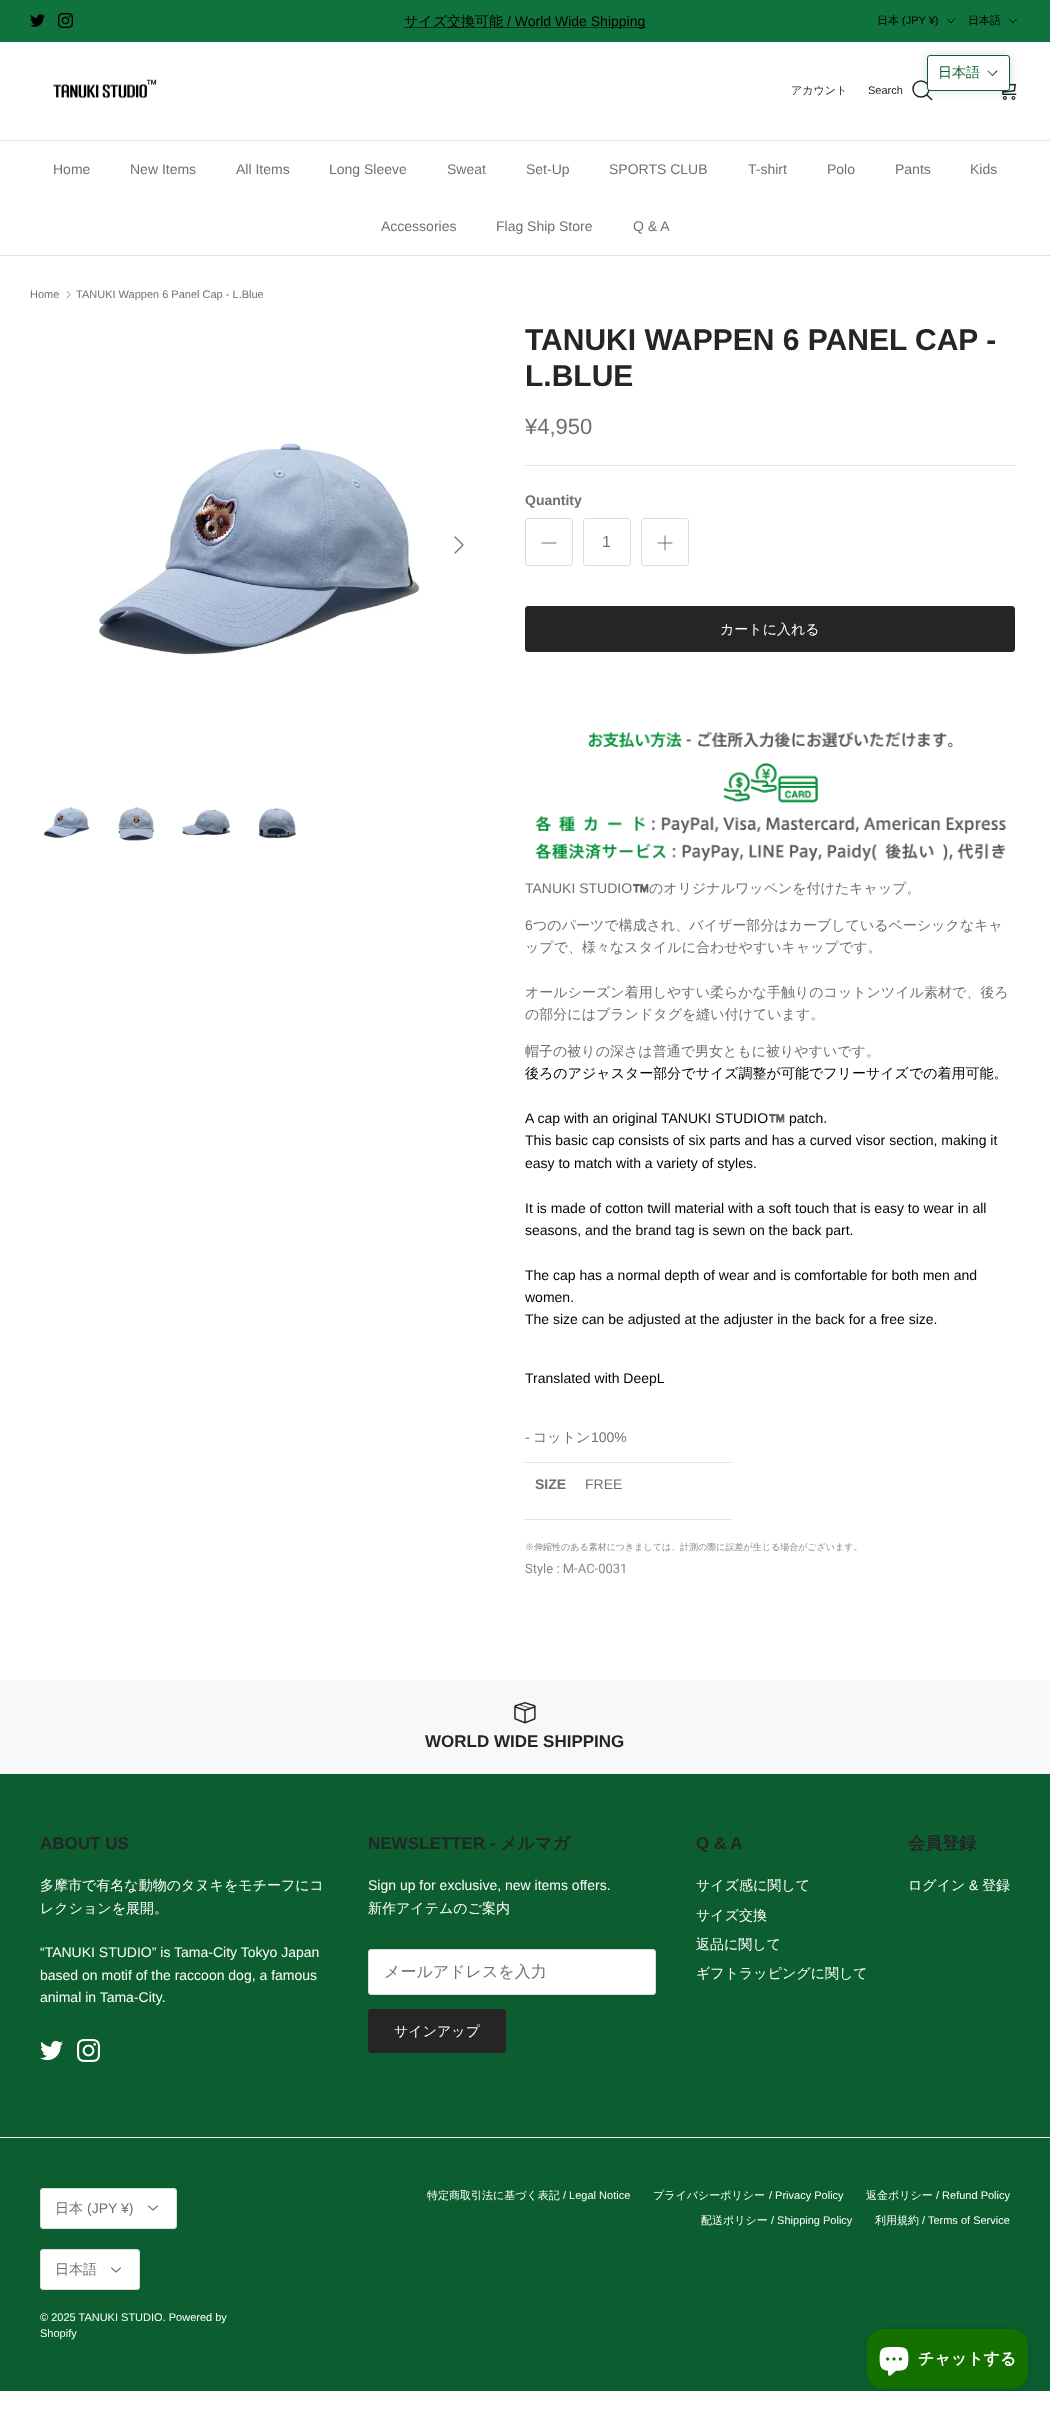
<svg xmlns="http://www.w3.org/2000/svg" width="1050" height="2410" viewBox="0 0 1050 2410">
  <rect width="100%" height="100%" fill="rgb(255,255,255)"/>
  <rect x="0" y="0" width="1050" height="42" fill="rgb(16,115,61)"/>
  <image x="30" y="14" width="15" height="13" href="pic1.png"/>
  <image x="58" y="13" width="15" height="15" href="pic2.png"/>
  <rect x="404" y="27" width="242" height="1" fill="rgb(6,46,24)"/>
  <text x="404" y="26" font-family="WenQuanYi Zen Hei" font-size="14" font-weight="500" fill="rgb(0,0,0)">サイズ交換可能</text>
  <text x="507" y="26" font-family="Liberation Sans" font-size="14" fill="rgb(0,0,0)">/ World Wide Shipping</text>
  <text x="877" y="24" font-family="WenQuanYi Zen Hei" font-size="11" font-weight="500" fill="rgb(0,0,0)">日本</text>
  <text x="902" y="24" font-family="Liberation Sans" font-size="11" fill="rgb(0,0,0)">(JPY ¥)</text>
  <path d="M947.5 19L951 23L954.5 19" fill="none" stroke="rgb(0,0,0)" stroke-width="0.9" stroke-linecap="round" stroke-linejoin="round"/>
  <text x="968" y="24" font-family="WenQuanYi Zen Hei" font-size="11" font-weight="500" fill="rgb(0,0,0)">日本語</text>
  <path d="M1009.5 19L1013 23L1016.5 19" fill="none" stroke="rgb(0,0,0)" stroke-width="0.9" stroke-linecap="round" stroke-linejoin="round"/>
  <circle cx="921" cy="89" r="8" fill="none" stroke="rgb(37,37,37)" stroke-width="1.5"/>
  <path d="M927 95L931.5 99.5" fill="none" stroke="rgb(37,37,37)" stroke-width="1.5" stroke-linecap="square"/>
  <image x="1001" y="83" width="16" height="17" href="pic4.png"/>
  <rect x="927" y="55" width="83" height="36" rx="3" fill="rgba(0,0,0,0.15)" filter="blur(5px)"/>
  <rect x="927.5" y="55.5" width="82" height="35" rx="2.5" fill="rgb(255,255,255)" stroke="rgb(12,94,49)"/>
  <text x="938" y="77" font-family="WenQuanYi Zen Hei" font-size="14" font-weight="500" fill="rgb(12,94,49)">日本語</text>
  <path d="M996.5 70.5L997.5 71L992.5 76L992 75.5Z" fill="rgb(26,26,26)"/>
  <path d="M988 70.5L993 75.5L992.5 76L987.5 71Z" fill="rgb(26,26,26)"/>
  <rect x="0" y="140" width="1050" height="1" fill="rgb(226,226,226)"/>
  <image x="53" y="79" width="104" height="20" href="pic3.png"/>
  <text x="791" y="94" font-family="WenQuanYi Zen Hei" font-size="11" font-weight="500" fill="rgb(37,37,37)">アカウント</text>
  <text x="868" y="94" font-family="Liberation Sans" font-size="11" fill="rgb(37,37,37)">Search</text>
  <rect x="0" y="255" width="1050" height="1" fill="rgb(226,226,226)"/>
  <g font-family="Liberation Sans" font-size="14" fill="rgb(109,113,117)">
    <text x="53" y="174">Home</text>
    <text x="130" y="174">New Items</text>
    <text x="236" y="174">All Items</text>
    <text x="329" y="174">Long Sleeve</text>
    <text x="447" y="174">Sweat</text>
    <text x="526" y="174">Set-Up</text>
    <text x="609" y="174">SPORTS CLUB</text>
    <text x="748" y="174">T-shirt</text>
    <text x="827" y="174">Polo</text>
    <text x="895" y="174">Pants</text>
    <text x="970" y="174">Kids</text>
    <text x="381" y="231">Accessories</text>
    <text x="496" y="231">Flag Ship Store</text>
    <text x="633" y="231">Q &amp; A</text>
  </g>
  <text x="30" y="298" font-family="Liberation Sans" font-size="11" fill="rgb(109,113,117)">Home</text>
  <path d="M67 298L70 294.5L67 291.5" fill="none" stroke="rgb(109,113,117)" stroke-width="0.8" stroke-linecap="round" stroke-linejoin="round"/>
  <text x="76" y="298" font-family="Liberation Sans" font-size="11" fill="rgb(109,113,117)">TANUKI Wappen 6 Panel Cap - L.Blue</text>
  <image x="97" y="443" width="323" height="213" href="pic5.png"/>
  <path d="M455 553L463 545L455 537" fill="none" stroke="rgb(109,113,117)" stroke-width="1.3" stroke-linecap="round" stroke-linejoin="round"/>
  <image x="44" y="807" width="46" height="32" href="pic6.png"/>
  <image x="118" y="807" width="36" height="34" href="pic7.png"/>
  <image x="182" y="809" width="49" height="27" href="pic8.png"/>
  <image x="258" y="808" width="38" height="31" href="pic9.png"/>
  <g font-family="Liberation Sans" font-size="30" font-weight="bold" fill="rgb(37,37,37)">
    <text>
      <tspan x="525" y="350">TANUKI WAPPEN 6 PANEL CAP -</tspan>
      <tspan x="525" y="386">L.BLUE</tspan>
    </text>
  </g>
  <text x="525" y="434" font-family="Liberation Sans" font-size="22" fill="rgb(109,113,117)">¥4,950</text>
  <rect x="525" y="465" width="490" height="1" fill="rgb(226,226,226)"/>
  <text x="525" y="505" font-family="Liberation Sans" font-size="14" font-weight="bold" fill="rgb(109,113,117)">Quantity</text>
  <rect x="525.5" y="518.5" width="47" height="47" rx="2.5" fill="none" stroke="rgb(219,220,221)"/>
  <path d="M542 543H556" fill="none" stroke="rgb(109,113,117)" stroke-linecap="round" stroke-linejoin="round"/>
  <rect x="583.5" y="518.5" width="47" height="47" rx="2.5" fill="none" stroke="rgb(219,220,221)"/>
  <text x="602" y="547" font-family="Liberation Sans" font-size="16" fill="rgb(109,113,117)">1</text>
  <rect x="641.5" y="518.5" width="47" height="47" rx="2.5" fill="none" stroke="rgb(219,220,221)"/>
  <path d="M665 536V550M658 543H672" fill="none" stroke="rgb(109,113,117)" stroke-linecap="round" stroke-linejoin="round"/>
  <rect x="525.5" y="606.5" width="489" height="45" rx="2.5" fill="rgb(37,37,37)" stroke="rgb(37,37,37)"/>
  <text x="720" y="634" font-family="WenQuanYi Zen Hei" font-size="14" font-weight="500" fill="rgb(255,255,255)">カートに入れる</text>
  <image x="535" y="731" width="472" height="131" href="pic10.png"/>
  <text x="525" y="893" font-family="Liberation Sans" font-size="14" fill="rgb(109,113,117)">TANUKI STUDIO</text>
  <text x="632" y="893" font-family="Noto Color Emoji" font-size="14" fill="rgb(109,113,117)">™️</text>
  <text x="649" y="893" font-family="WenQuanYi Zen Hei" font-size="14" font-weight="500" fill="rgb(109,113,117)">のオリジナルワッペンを付けたキャップ。</text>
  <text x="525" y="930" font-family="Liberation Sans" font-size="14" fill="rgb(109,113,117)">6</text>
  <g font-family="WenQuanYi Zen Hei" font-size="14" font-weight="500" fill="rgb(109,113,117)">
    <text x="533" y="930">つのパーツで構成され、バイザー部分はカーブしているベーシックなキャ</text>
    <text x="525" y="952">ップで、様々なスタイルに合わせやすいキャップです。</text>
    <text>
      <tspan x="525" y="997">オールシーズン着用しやすい柔らかな手触りのコットンツイル素材で、後ろ</tspan>
      <tspan x="525" y="1019">の部分にはブランドタグを縫い付けています。</tspan>
    </text>
    <text x="525" y="1056">帽子の被りの深さは普通で男女ともに被りやすいです。</text>
  </g>
  <text x="525" y="1078" font-family="WenQuanYi Zen Hei" font-size="14" font-weight="500" fill="rgb(0,0,0)">後ろのアジャスター部分でサイズ調整が可能でフリーサイズでの着用可能。</text>
  <text x="525" y="1123" font-family="Liberation Sans" font-size="14" fill="rgb(0,0,0)">A cap with an original TANUKI STUDIO</text>
  <text x="768" y="1123" font-family="Noto Color Emoji" font-size="14" fill="rgb(0,0,0)">™️</text>
  <g font-family="Liberation Sans" font-size="14" fill="rgb(0,0,0)">
    <text x="789" y="1123">patch.</text>
    <text>
      <tspan x="525" y="1145">This basic cap consists of six parts and has a curved visor section, making it</tspan>
      <tspan x="525" y="1168">easy to match with a variety of styles.</tspan>
    </text>
    <text>
      <tspan x="525" y="1213">It is made of cotton twill material with a soft touch that is easy to wear in all</tspan>
      <tspan x="525" y="1235">seasons, and the brand tag is sewn on the back part.</tspan>
    </text>
    <text>
      <tspan x="525" y="1280">The cap has a normal depth of wear and is comfortable for both men and</tspan>
      <tspan x="525" y="1302">women.</tspan>
      <tspan x="525" y="1324">The size can be adjusted at the adjuster in the back for a free size.</tspan>
    </text>
    <text x="525" y="1383">Translated with DeepL</text>
  </g>
  <text x="525" y="1442" font-family="Liberation Sans" font-size="14" fill="rgb(109,113,117)">-</text>
  <text x="533" y="1442" font-family="WenQuanYi Zen Hei" font-size="14" font-weight="500" fill="rgb(109,113,117)">コットン</text>
  <text x="591" y="1442" font-family="Liberation Sans" font-size="14" fill="rgb(109,113,117)">100%</text>
  <text x="535" y="1489" font-family="Liberation Sans" font-size="14" font-weight="bold" fill="rgb(109,113,117)">SIZE</text>
  <rect x="524" y="1462" width="208" height="1" fill="rgb(226,226,226)"/>
  <rect x="524" y="1519" width="208" height="1" fill="rgb(226,226,226)"/>
  <text x="585" y="1489" font-family="Liberation Sans" font-size="14" fill="rgb(109,113,117)">FREE</text>
  <text x="525" y="1550" font-family="WenQuanYi Zen Hei" font-size="9" font-weight="500" fill="rgb(137,137,137)">※伸縮性のある素材につきましては、計測の際に誤差が生じる場合がございます。</text>
  <text x="525" y="1573" font-family="Roboto" font-size="13" fill="rgb(137,137,137)">Style : M-AC-0031</text>
  <rect x="0" y="1774" width="1050" height="617" fill="rgb(12,94,49)"/>
  <rect x="0" y="1680" width="1050" height="93" fill="rgb(248,248,248)"/>
  <image x="514" y="1702" width="22" height="22" href="pic11.png"/>
  <text x="425" y="1747" font-family="Liberation Sans" font-size="17" font-weight="bold" fill="rgb(37,37,37)">WORLD WIDE SHIPPING</text>
  <rect x="0" y="1773" width="1050" height="1" fill="rgb(238,238,238)"/>
  <text x="40" y="1849" font-family="Liberation Sans" font-size="17" font-weight="bold" fill="rgb(37,37,37)">ABOUT US</text>
  <g font-family="WenQuanYi Zen Hei" font-size="14" font-weight="500" fill="rgb(255,255,255)">
    <text>
      <tspan x="40" y="1890">多摩市で有名な動物のタヌキをモチーフにコ</tspan>
      <tspan x="40" y="1913">レクションを展開。</tspan>
    </text>
  </g>
  <g font-family="Liberation Sans" font-size="14" fill="rgb(255,255,255)">
    <text>
      <tspan x="40" y="1957">“TANUKI STUDIO” is Tama-City Tokyo Japan</tspan>
      <tspan x="40" y="1980">based on motif of the raccoon dog, a famous</tspan>
      <tspan x="40" y="2002">animal in Tama-City.</tspan>
    </text>
  </g>
  <image x="40" y="2040" width="23" height="21" href="pic12.png"/>
  <image x="77" y="2039" width="23" height="23" href="pic13.png"/>
  <text x="368" y="1849" font-family="Liberation Sans" font-size="17" font-weight="bold" fill="rgb(37,37,37)">NEWSLETTER -</text>
  <text x="500" y="1849" font-family="WenQuanYi Zen Hei" font-size="17" font-weight="bold" fill="rgb(37,37,37)">メルマガ</text>
  <text x="368" y="1890" font-family="Liberation Sans" font-size="14" fill="rgb(255,255,255)">Sign up for exclusive, new items offers.</text>
  <text x="368" y="1913" font-family="WenQuanYi Zen Hei" font-size="14" font-weight="500" fill="rgb(255,255,255)">新作アイテムのご案内</text>
  <rect x="368.5" y="1949.5" width="287" height="45" rx="2.5" fill="rgb(255,255,255)" stroke="rgb(219,220,221)"/>
  <text x="384" y="1977" font-family="WenQuanYi Zen Hei" font-size="16" font-weight="500" fill="rgb(109,113,117)">メールアドレスを入力</text>
  <rect x="368.5" y="2009.5" width="137" height="43" rx="2.5" fill="rgb(37,37,37)" stroke="rgb(37,37,37)"/>
  <text x="394" y="2036" font-family="WenQuanYi Zen Hei" font-size="14" font-weight="500" fill="rgb(255,255,255)">サインアップ</text>
  <text x="696" y="1849" font-family="Liberation Sans" font-size="17" font-weight="bold" fill="rgb(37,37,37)">Q &amp; A</text>
  <g font-family="WenQuanYi Zen Hei" font-size="14" font-weight="500" fill="rgb(255,255,255)">
    <text x="696" y="1890">サイズ感に関して</text>
    <text x="696" y="1920">サイズ交換</text>
    <text x="696" y="1949">返品に関して</text>
    <text x="696" y="1978">ギフトラッピングに関して</text>
  </g>
  <text x="908" y="1849" font-family="WenQuanYi Zen Hei" font-size="17" font-weight="bold" fill="rgb(37,37,37)">会員登録</text>
  <text x="908" y="1890" font-family="WenQuanYi Zen Hei" font-size="14" font-weight="500" fill="rgb(255,255,255)">ログイン</text>
  <text x="969" y="1890" font-family="Liberation Sans" font-size="14" fill="rgb(255,255,255)">&amp;</text>
  <text x="982" y="1890" font-family="WenQuanYi Zen Hei" font-size="14" font-weight="500" fill="rgb(255,255,255)">登録</text>
  <rect x="0" y="2137" width="1050" height="1" fill="rgb(238,238,238)"/>
  <rect x="40.5" y="2188.5" width="136" height="40" rx="2.5" fill="rgb(255,255,255)" stroke="rgb(219,220,221)"/>
  <text x="55" y="2213" font-family="WenQuanYi Zen Hei" font-size="14" font-weight="500" fill="rgb(109,113,117)">日本</text>
  <text x="87" y="2213" font-family="Liberation Sans" font-size="14" fill="rgb(109,113,117)">(JPY ¥)</text>
  <path d="M148.5 2206L153 2210L157.5 2206" fill="none" stroke="rgb(109,113,117)" stroke-width="1.1" stroke-linecap="round" stroke-linejoin="round"/>
  <rect x="40.5" y="2249.5" width="99" height="40" rx="2.5" fill="rgb(255,255,255)" stroke="rgb(219,220,221)"/>
  <text x="55" y="2274" font-family="WenQuanYi Zen Hei" font-size="14" font-weight="500" fill="rgb(109,113,117)">日本語</text>
  <path d="M111.5 2268L116 2272L120.5 2268" fill="none" stroke="rgb(109,113,117)" stroke-width="1.1" stroke-linecap="round" stroke-linejoin="round"/>
  <g font-family="Liberation Sans" font-size="11" fill="rgb(255,255,255)">
    <text>
      <tspan x="40" y="2321">© 2025 TANUKI STUDIO. Powered by</tspan>
      <tspan x="40" y="2337">Shopify</tspan>
    </text>
  </g>
  <text x="427" y="2199" font-family="WenQuanYi Zen Hei" font-size="11" font-weight="500" fill="rgb(255,255,255)">特定商取引法に基づく表記</text>
  <text x="563" y="2199" font-family="Liberation Sans" font-size="11" fill="rgb(255,255,255)">/ Legal Notice</text>
  <text x="653" y="2199" font-family="WenQuanYi Zen Hei" font-size="11" font-weight="500" fill="rgb(255,255,255)">プライバシーポリシー</text>
  <text x="769" y="2199" font-family="Liberation Sans" font-size="11" fill="rgb(255,255,255)">/ Privacy Policy</text>
  <text x="866" y="2199" font-family="WenQuanYi Zen Hei" font-size="11" font-weight="500" fill="rgb(255,255,255)">返金ポリシー</text>
  <text x="936" y="2199" font-family="Liberation Sans" font-size="11" fill="rgb(255,255,255)">/ Refund Policy</text>
  <text x="701" y="2224" font-family="WenQuanYi Zen Hei" font-size="11" font-weight="500" fill="rgb(255,255,255)">配送ポリシー</text>
  <text x="771" y="2224" font-family="Liberation Sans" font-size="11" fill="rgb(255,255,255)">/ Shipping Policy</text>
  <text x="875" y="2224" font-family="WenQuanYi Zen Hei" font-size="11" font-weight="500" fill="rgb(255,255,255)">利用規約</text>
  <text x="922" y="2224" font-family="Liberation Sans" font-size="11" fill="rgb(255,255,255)">/ Terms of Service</text>
  <rect x="867" y="2329" width="161" height="60" rx="16" fill="rgba(0,0,0,0.15)" filter="blur(2.5px)"/>
  <rect x="867" y="2329" width="161" height="60" rx="16" fill="rgb(20,113,0)"/>
  <image x="879" y="2347" width="30" height="29" href="pic14.png"/>
  <text x="918" y="2364" font-family="WenQuanYi Zen Hei" font-size="16" font-weight="bold" fill="rgb(255,255,255)">チャットする</text>
</svg>
